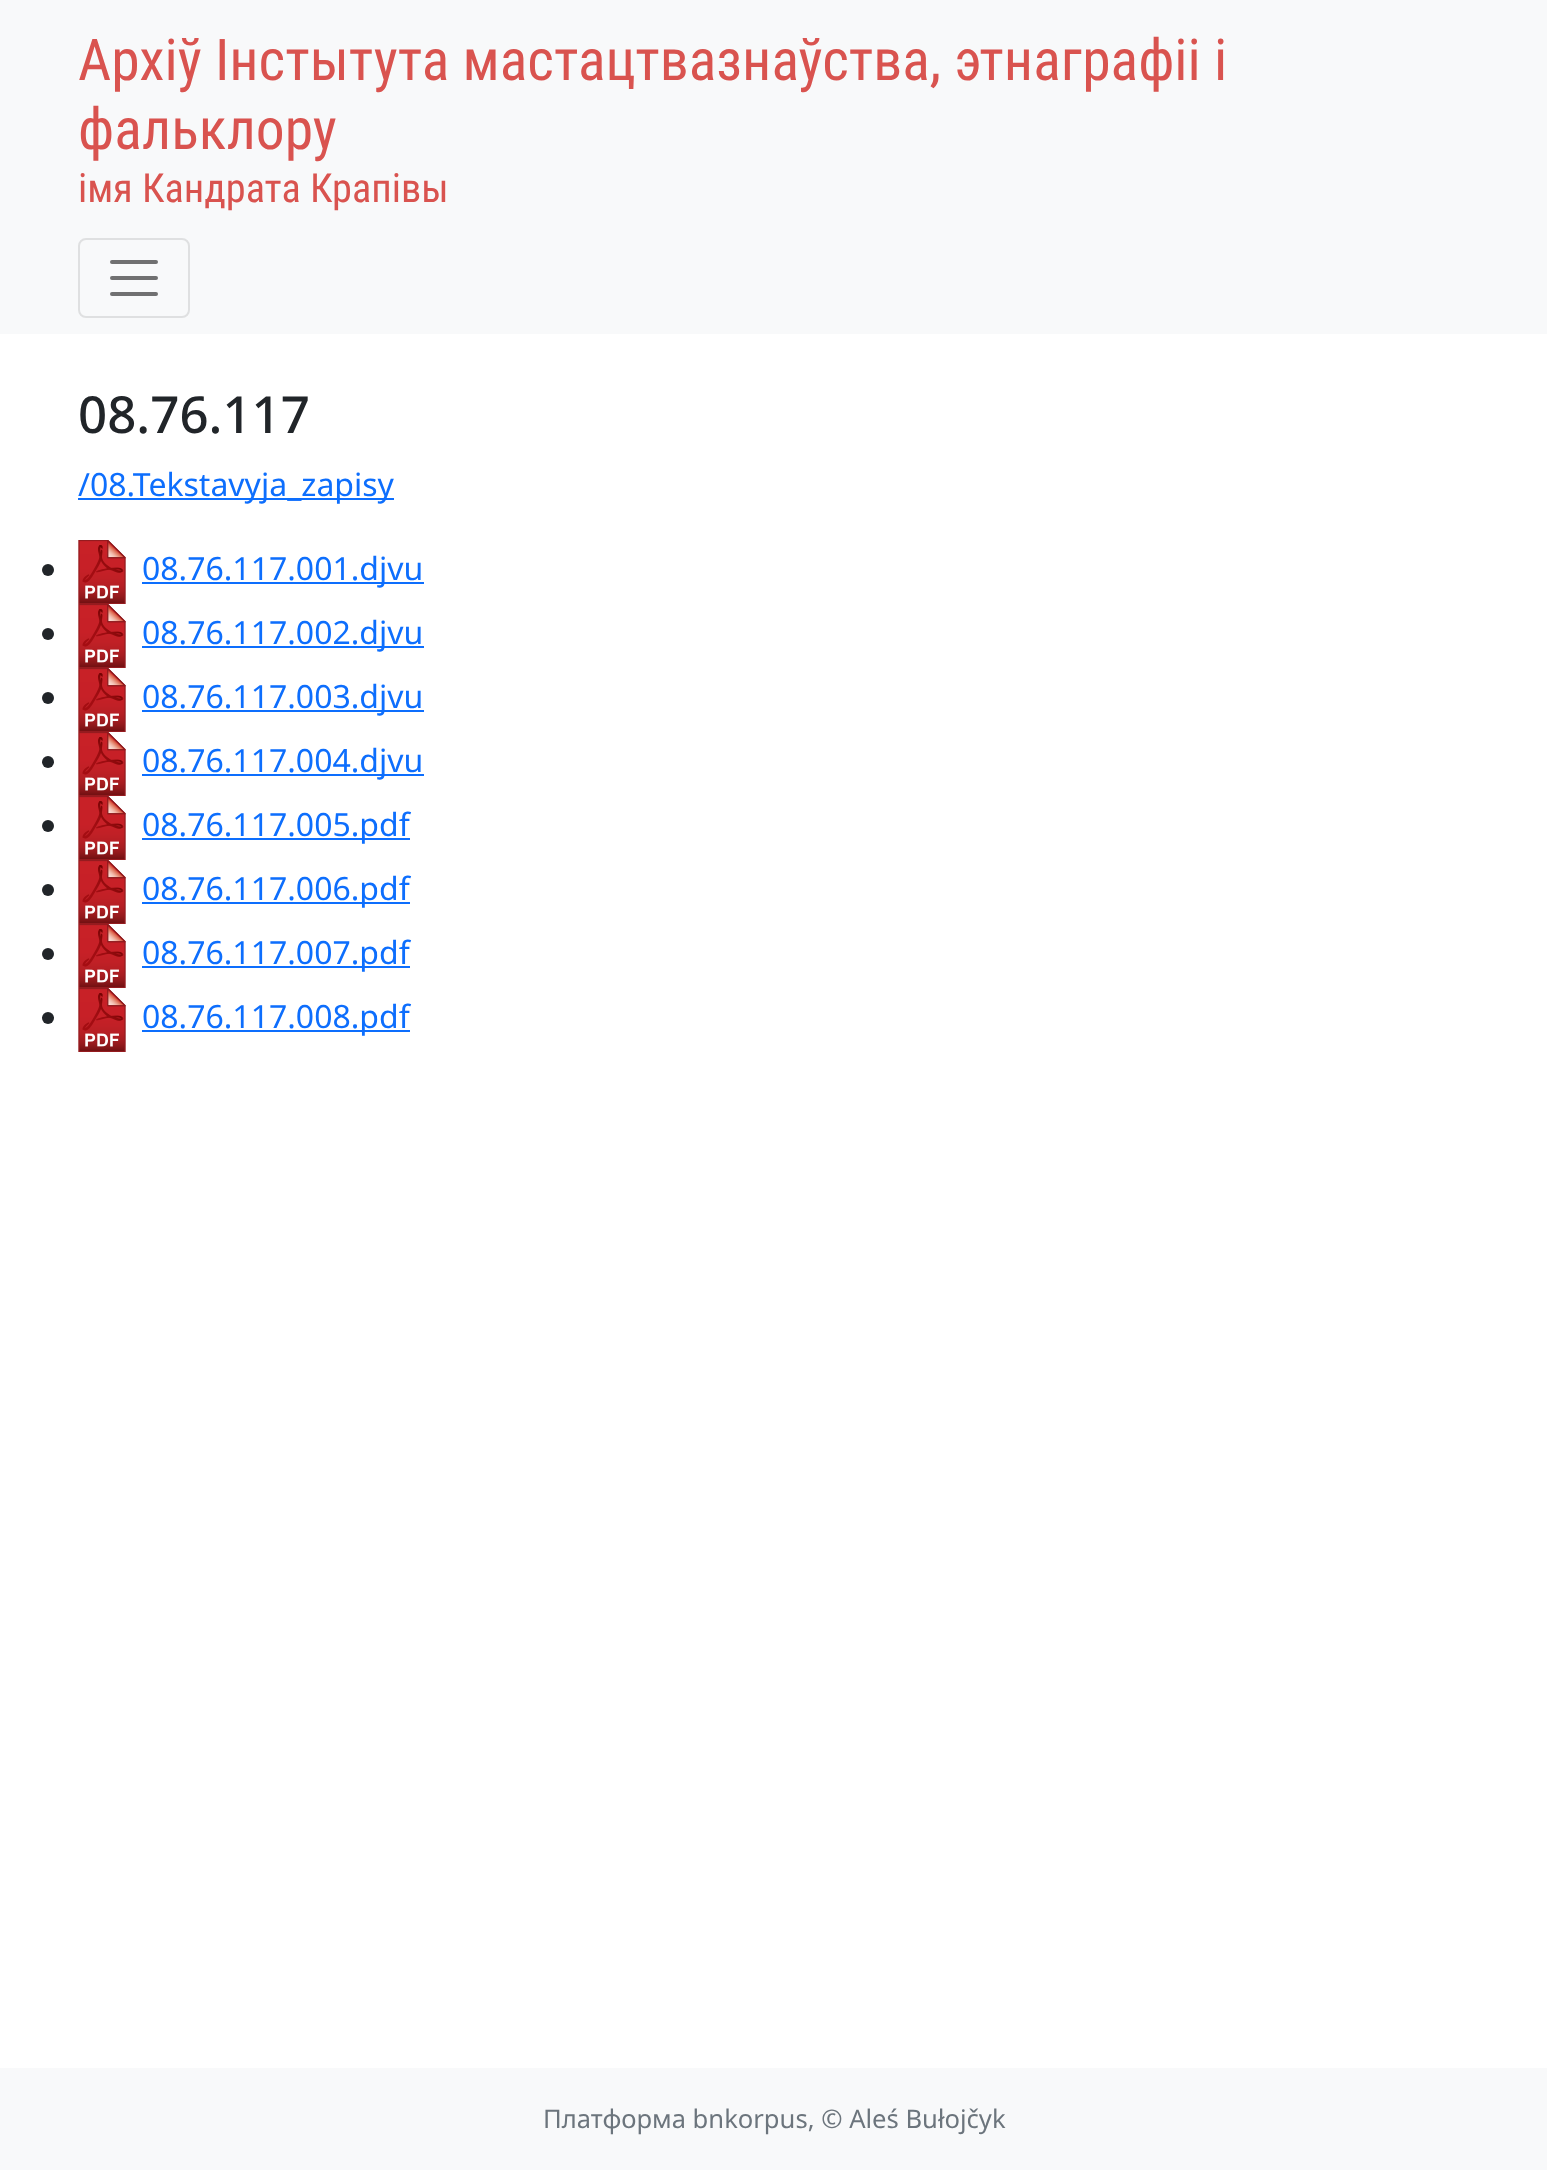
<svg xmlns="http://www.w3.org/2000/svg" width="1547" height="2170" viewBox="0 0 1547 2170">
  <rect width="100%" height="100%" fill="rgb(255,255,255)"/>
  <rect x="0" y="0" width="1547" height="334" fill="rgb(248,249,250)"/>
  <g font-family="Roboto Condensed" font-size="57.6" fill="rgb(217,83,79)">
    <text>
      <tspan x="78" y="80">Архіў Інстытута мастацтвазнаўства, этнаграфіі і</tspan>
      <tspan x="78" y="149">фальклору</tspan>
    </text>
  </g>
  <text x="78" y="202" font-family="Roboto Condensed" font-size="40.25" fill="rgb(217,83,79)">імя Кандрата Крапівы</text>
  <rect x="79" y="239" width="110" height="78" rx="7" fill="none" stroke="rgb(223,224,225)" stroke-width="2"/>
  <path d="M112 262H156M112 278H156M112 294H156" fill="none" stroke="rgb(112,112,113)" stroke-width="4" stroke-linecap="round"/>
  <text x="78" y="433" font-family="Noto Sans" font-size="51" font-weight="500" fill="rgb(33,37,41)">08.76.117</text>
  <rect x="78" y="498" width="316" height="2" fill="rgb(13,110,253)"/>
  <text x="78" y="496" font-family="Noto Sans" font-size="32" fill="rgb(13,110,253)">/08.Tekstavyja_zapisy</text>
  <circle cx="48" cy="570" r="6" fill="rgb(33,37,41)"/>
  <image x="78" y="540" width="48" height="64" href="pic1.png"/>
  <rect x="142" y="582" width="282" height="2" fill="rgb(13,110,253)"/>
  <text x="142" y="580" font-family="Noto Sans" font-size="32" fill="rgb(13,110,253)">08.76.117.001.djvu</text>
  <circle cx="48" cy="634" r="6" fill="rgb(33,37,41)"/>
  <image x="78" y="604" width="48" height="64" href="pic1.png"/>
  <rect x="142" y="646" width="282" height="2" fill="rgb(13,110,253)"/>
  <text x="142" y="644" font-family="Noto Sans" font-size="32" fill="rgb(13,110,253)">08.76.117.002.djvu</text>
  <circle cx="48" cy="698" r="6" fill="rgb(33,37,41)"/>
  <image x="78" y="668" width="48" height="64" href="pic1.png"/>
  <rect x="142" y="710" width="282" height="2" fill="rgb(13,110,253)"/>
  <text x="142" y="708" font-family="Noto Sans" font-size="32" fill="rgb(13,110,253)">08.76.117.003.djvu</text>
  <circle cx="48" cy="762" r="6" fill="rgb(33,37,41)"/>
  <image x="78" y="732" width="48" height="64" href="pic1.png"/>
  <rect x="142" y="774" width="282" height="2" fill="rgb(13,110,253)"/>
  <text x="142" y="772" font-family="Noto Sans" font-size="32" fill="rgb(13,110,253)">08.76.117.004.djvu</text>
  <circle cx="48" cy="826" r="6" fill="rgb(33,37,41)"/>
  <image x="78" y="796" width="48" height="64" href="pic1.png"/>
  <rect x="142" y="838" width="268" height="2" fill="rgb(13,110,253)"/>
  <text x="142" y="836" font-family="Noto Sans" font-size="32" fill="rgb(13,110,253)">08.76.117.005.pdf</text>
  <circle cx="48" cy="890" r="6" fill="rgb(33,37,41)"/>
  <image x="78" y="860" width="48" height="64" href="pic1.png"/>
  <rect x="142" y="902" width="268" height="2" fill="rgb(13,110,253)"/>
  <text x="142" y="900" font-family="Noto Sans" font-size="32" fill="rgb(13,110,253)">08.76.117.006.pdf</text>
  <circle cx="48" cy="954" r="6" fill="rgb(33,37,41)"/>
  <image x="78" y="924" width="48" height="64" href="pic1.png"/>
  <rect x="142" y="966" width="268" height="2" fill="rgb(13,110,253)"/>
  <text x="142" y="964" font-family="Noto Sans" font-size="32" fill="rgb(13,110,253)">08.76.117.007.pdf</text>
  <circle cx="48" cy="1018" r="6" fill="rgb(33,37,41)"/>
  <image x="78" y="988" width="48" height="64" href="pic1.png"/>
  <rect x="142" y="1030" width="268" height="2" fill="rgb(13,110,253)"/>
  <text x="142" y="1028" font-family="Noto Sans" font-size="32" fill="rgb(13,110,253)">08.76.117.008.pdf</text>
  <rect x="0" y="2068" width="1547" height="102" fill="rgb(248,249,250)"/>
  <text x="543" y="2128" font-family="Noto Sans" font-size="25.6" fill="rgb(108,117,125)">Платформа bnkorpus, © Aleś Bułojčyk</text>
</svg>
